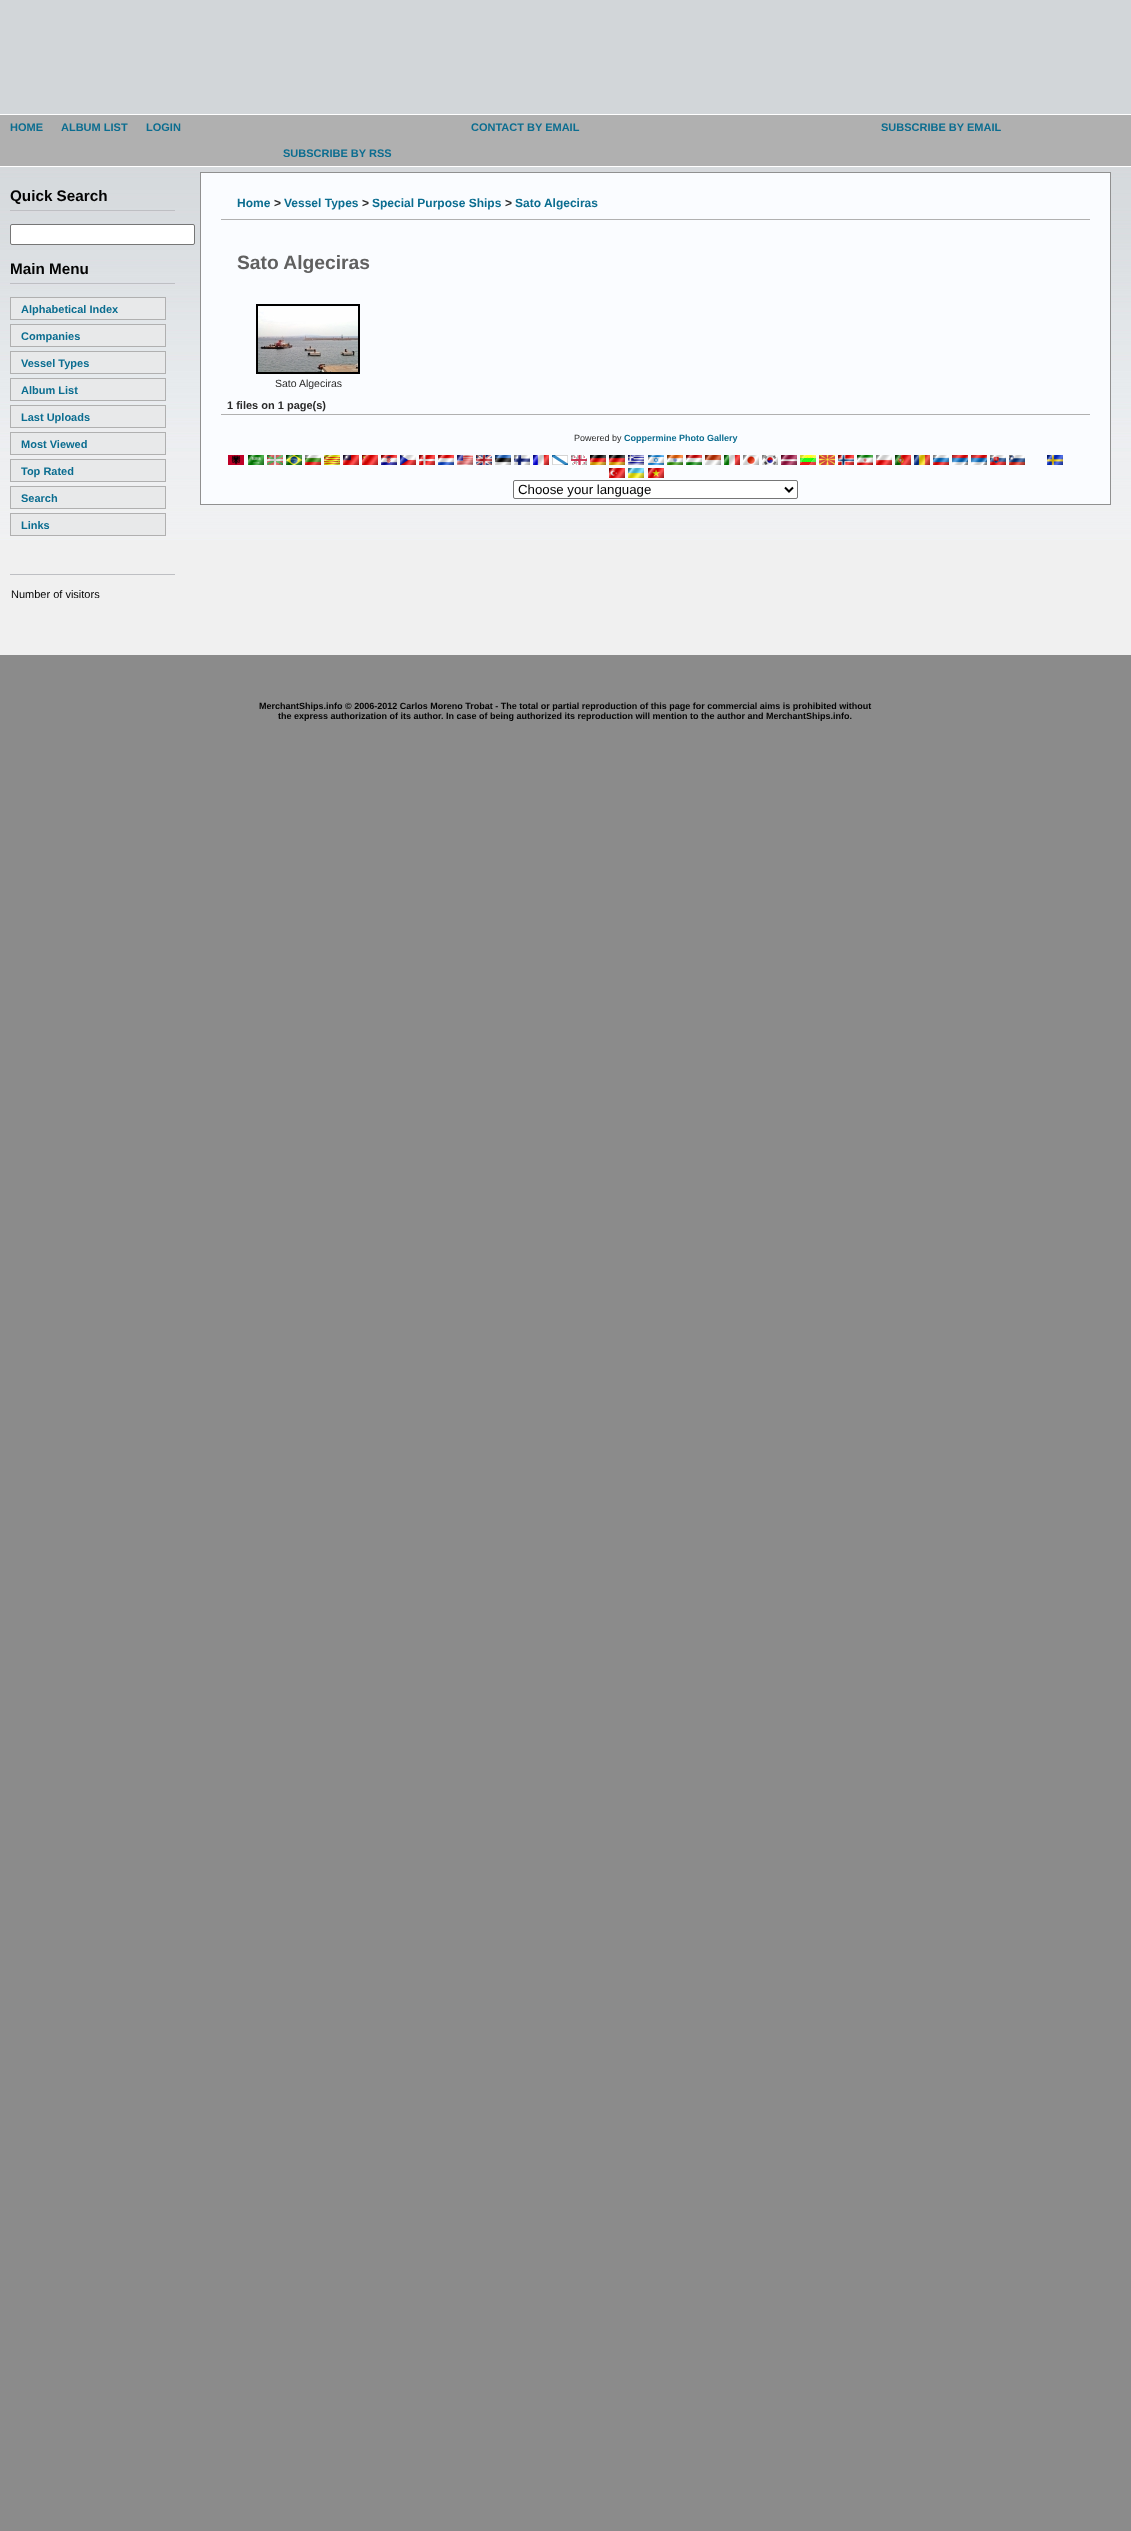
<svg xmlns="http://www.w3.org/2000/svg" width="1131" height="2531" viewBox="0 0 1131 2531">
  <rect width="100%" height="100%" fill="rgb(139,139,139)"/>
  <rect x="0" y="540" width="1131" height="115" fill="rgb(240,240,240)"/>
  <image x="0" y="167" width="1131" height="373" href="pic1.png"/>
  <rect x="0" y="0" width="1131" height="114" fill="rgb(210,214,217)"/>
  <rect x="0" y="115" width="1131" height="51" fill="rgb(176,176,176)"/>
  <rect x="0" y="114" width="1131" height="1" fill="rgb(255,255,255)"/>
  <rect x="0" y="166" width="1131" height="1" fill="rgb(255,255,255)"/>
  <g font-family="Liberation Sans" font-size="11" font-weight="bold" fill="rgb(11,109,144)">
    <text x="10" y="131">HOME</text>
    <text x="61" y="131">ALBUM LIST</text>
    <text x="146" y="131">LOGIN</text>
    <text x="471" y="131">CONTACT BY EMAIL</text>
    <text x="881" y="131">SUBSCRIBE BY EMAIL</text>
    <text x="283" y="157">SUBSCRIBE BY RSS</text>
  </g>
  <rect x="10" y="210" width="165" height="1" fill="rgb(190,191,195)"/>
  <text x="10" y="201" font-family="Liberation Sans" font-size="15.25" font-weight="bold" fill="rgb(3,3,3)">Quick Search</text>
  <rect x="10.5" y="224.5" width="184" height="20" rx="1.5" fill="rgb(255,255,255)" stroke="rgb(118,118,118)"/>
  <rect x="10" y="283" width="165" height="1" fill="rgb(190,191,195)"/>
  <text x="10" y="274" font-family="Liberation Sans" font-size="15.25" font-weight="bold" fill="rgb(3,3,3)">Main Menu</text>
  <rect x="10.5" y="297.5" width="155" height="22" fill="rgb(232,233,234)" stroke="rgb(176,176,176)"/>
  <text x="21" y="313" font-family="Liberation Sans" font-size="11" font-weight="bold" fill="rgb(11,109,144)">Alphabetical Index</text>
  <rect x="10.5" y="324.5" width="155" height="22" fill="rgb(232,233,234)" stroke="rgb(176,176,176)"/>
  <text x="21" y="340" font-family="Liberation Sans" font-size="11" font-weight="bold" fill="rgb(11,109,144)">Companies</text>
  <rect x="10.5" y="351.5" width="155" height="22" fill="rgb(232,233,234)" stroke="rgb(176,176,176)"/>
  <text x="21" y="367" font-family="Liberation Sans" font-size="11" font-weight="bold" fill="rgb(11,109,144)">Vessel Types</text>
  <rect x="10.5" y="378.5" width="155" height="22" fill="rgb(232,233,234)" stroke="rgb(176,176,176)"/>
  <text x="21" y="394" font-family="Liberation Sans" font-size="11" font-weight="bold" fill="rgb(11,109,144)">Album List</text>
  <rect x="10.5" y="405.5" width="155" height="22" fill="rgb(232,233,234)" stroke="rgb(176,176,176)"/>
  <text x="21" y="421" font-family="Liberation Sans" font-size="11" font-weight="bold" fill="rgb(11,109,144)">Last Uploads</text>
  <rect x="10.5" y="432.5" width="155" height="22" fill="rgb(232,233,234)" stroke="rgb(176,176,176)"/>
  <text x="21" y="448" font-family="Liberation Sans" font-size="11" font-weight="bold" fill="rgb(11,109,144)">Most Viewed</text>
  <rect x="10.5" y="459.5" width="155" height="22" fill="rgb(232,233,234)" stroke="rgb(176,176,176)"/>
  <text x="21" y="475" font-family="Liberation Sans" font-size="11" font-weight="bold" fill="rgb(11,109,144)">Top Rated</text>
  <rect x="10.5" y="486.5" width="155" height="22" fill="rgb(232,233,234)" stroke="rgb(176,176,176)"/>
  <text x="21" y="502" font-family="Liberation Sans" font-size="11" font-weight="bold" fill="rgb(11,109,144)">Search</text>
  <rect x="10.5" y="513.5" width="155" height="22" fill="rgb(232,233,234)" stroke="rgb(176,176,176)"/>
  <text x="21" y="529" font-family="Liberation Sans" font-size="11" font-weight="bold" fill="rgb(11,109,144)">Links</text>
  <rect x="10" y="574" width="165" height="1" fill="rgb(190,191,195)"/>
  <text x="11" y="598" font-family="Liberation Sans" font-size="11" fill="rgb(3,3,3)">Number of visitors</text>
  <rect x="200.5" y="172.5" width="910" height="332" fill="rgb(250,252,255)" stroke="rgb(144,144,144)"/>
  <rect x="221" y="219" width="869" height="1" fill="rgb(176,176,176)"/>
  <text x="237" y="207" font-family="Liberation Sans" font-size="12" font-weight="bold" fill="rgb(11,109,144)">Home</text>
  <text x="274" y="207" font-family="Liberation Sans" font-size="12" font-weight="bold" fill="rgb(42,42,42)">&gt;</text>
  <text x="284" y="207" font-family="Liberation Sans" font-size="12" font-weight="bold" fill="rgb(11,109,144)">Vessel Types</text>
  <text x="362" y="207" font-family="Liberation Sans" font-size="12" font-weight="bold" fill="rgb(42,42,42)">&gt;</text>
  <text x="372" y="207" font-family="Liberation Sans" font-size="12" font-weight="bold" fill="rgb(11,109,144)">Special Purpose Ships</text>
  <text x="505" y="207" font-family="Liberation Sans" font-size="12" font-weight="bold" fill="rgb(42,42,42)">&gt;</text>
  <text x="515" y="207" font-family="Liberation Sans" font-size="12" font-weight="bold" fill="rgb(11,109,144)">Sato Algeciras</text>
  <rect x="221" y="414" width="869" height="1" fill="rgb(176,176,176)"/>
  <text x="237" y="269" font-family="Liberation Sans" font-size="19.25" font-weight="bold" fill="rgb(96,96,96)">Sato Algeciras</text>
  <rect x="257" y="305" width="102" height="68" fill="none" stroke="rgb(0,0,0)" stroke-width="2"/>
  <image x="258" y="307" width="100" height="65" href="pic2.png"/>
  <text x="275" y="387" font-family="Liberation Sans" font-size="10.5" fill="rgb(42,42,42)">Sato Algeciras</text>
  <text x="227" y="409" font-family="Liberation Sans" font-size="11" font-weight="bold" fill="rgb(42,42,42)">1 files on 1 page(s)</text>
  <text x="574" y="441" font-family="Liberation Sans" font-size="9" fill="rgb(42,42,42)">Powered by</text>
  <text x="624" y="441" font-family="Liberation Sans" font-size="9" font-weight="bold" fill="rgb(11,109,144)">Coppermine Photo Gallery</text>
  <image x="228" y="455" width="16" height="10" href="pic3.png"/>
  <image x="248" y="455" width="16" height="10" href="pic4.png"/>
  <image x="267" y="455" width="16" height="10" href="pic5.png"/>
  <image x="286" y="455" width="16" height="10" href="pic6.png"/>
  <image x="305" y="455" width="16" height="10" href="pic7.png"/>
  <image x="324" y="455" width="16" height="10" href="pic8.png"/>
  <image x="343" y="455" width="16" height="10" href="pic9.png"/>
  <image x="362" y="455" width="16" height="10" href="pic10.png"/>
  <image x="381" y="455" width="16" height="10" href="pic11.png"/>
  <image x="400" y="455" width="16" height="10" href="pic12.png"/>
  <image x="419" y="455" width="16" height="10" href="pic13.png"/>
  <image x="438" y="455" width="16" height="10" href="pic14.png"/>
  <image x="457" y="455" width="16" height="10" href="pic15.png"/>
  <image x="476" y="455" width="16" height="10" href="pic16.png"/>
  <image x="495" y="455" width="16" height="10" href="pic17.png"/>
  <image x="514" y="455" width="16" height="10" href="pic18.png"/>
  <image x="533" y="455" width="16" height="10" href="pic19.png"/>
  <image x="552" y="455" width="16" height="10" href="pic20.png"/>
  <image x="571" y="455" width="16" height="10" href="pic21.png"/>
  <image x="590" y="455" width="16" height="10" href="pic22.png"/>
  <image x="609" y="455" width="16" height="10" href="pic22.png"/>
  <image x="628" y="455" width="16" height="10" href="pic23.png"/>
  <image x="648" y="455" width="16" height="10" href="pic24.png"/>
  <image x="667" y="455" width="16" height="10" href="pic25.png"/>
  <image x="686" y="455" width="16" height="10" href="pic26.png"/>
  <image x="705" y="455" width="16" height="10" href="pic27.png"/>
  <image x="724" y="455" width="16" height="10" href="pic28.png"/>
  <image x="743" y="455" width="16" height="10" href="pic29.png"/>
  <image x="762" y="455" width="16" height="10" href="pic30.png"/>
  <image x="781" y="455" width="16" height="10" href="pic31.png"/>
  <image x="800" y="455" width="16" height="10" href="pic32.png"/>
  <image x="819" y="455" width="16" height="10" href="pic33.png"/>
  <image x="838" y="455" width="16" height="10" href="pic34.png"/>
  <image x="857" y="455" width="16" height="10" href="pic35.png"/>
  <image x="876" y="455" width="16" height="10" href="pic36.png"/>
  <image x="895" y="455" width="16" height="10" href="pic37.png"/>
  <image x="914" y="455" width="16" height="10" href="pic38.png"/>
  <image x="933" y="455" width="16" height="10" href="pic39.png"/>
  <image x="952" y="455" width="16" height="10" href="pic40.png"/>
  <image x="971" y="455" width="16" height="10" href="pic40.png"/>
  <image x="990" y="455" width="16" height="10" href="pic41.png"/>
  <image x="1009" y="455" width="16" height="10" href="pic42.png"/>
  <image x="1047" y="455" width="16" height="10" href="pic43.png"/>
  <image x="609" y="468" width="16" height="10" href="pic44.png"/>
  <image x="628" y="468" width="16" height="10" href="pic45.png"/>
  <image x="648" y="468" width="16" height="10" href="pic46.png"/>
  <rect x="513.5" y="480.5" width="284" height="18" rx="1.5" fill="rgb(255,255,255)" stroke="rgb(118,118,118)"/>
  <path d="M785 487.5L789 491.5L793 487.5" fill="none" stroke="rgb(0,0,0)" stroke-width="2"/>
  <text x="518" y="494" font-family="Liberation Sans" font-size="13.25" fill="rgb(3,3,3)">Choose your language</text>
  <g font-family="Liberation Sans" font-size="9" font-weight="bold" fill="rgb(3,3,3)">
    <text x="259" y="709">MerchantShips.info © 2006-2012 Carlos Moreno Trobat - The total or partial reproduction of this page for commercial aims is prohibited without</text>
    <text x="278" y="719">the express authorization of its author. In case of being authorized its reproduction will mention to the author and MerchantShips.info.</text>
  </g>
</svg>
